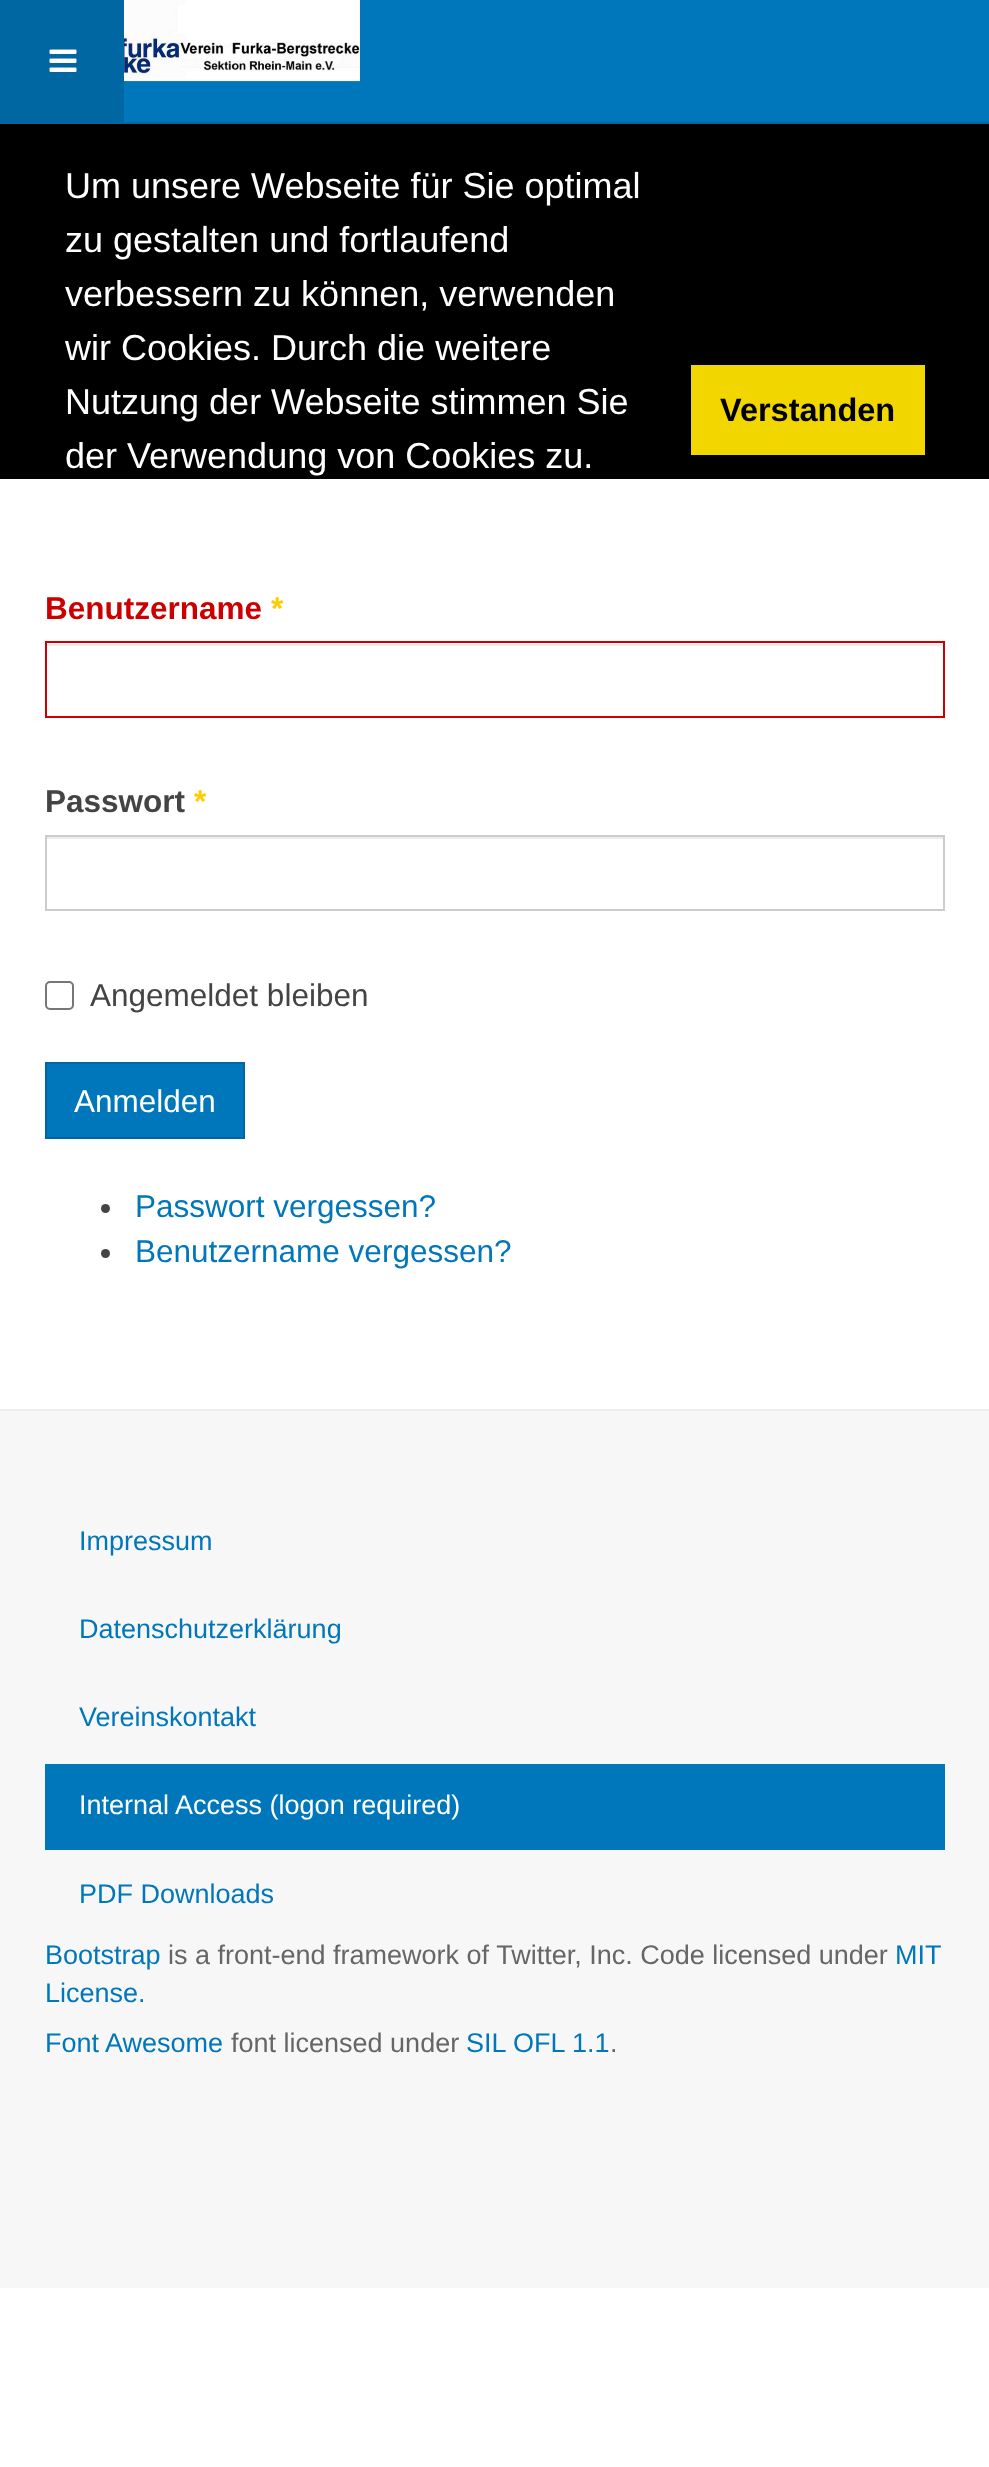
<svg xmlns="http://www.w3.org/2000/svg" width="989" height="2467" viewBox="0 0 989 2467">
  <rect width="100%" height="100%" fill="rgb(255,255,255)"/>
  <rect x="0" y="124" width="989" height="355" fill="rgb(0,0,0)"/>
  <g font-family="Liberation Sans" font-size="36" fill="rgb(255,255,255)">
    <text>
      <tspan x="65" y="198">Um unsere Webseite für Sie optimal</tspan>
      <tspan x="65" y="252">zu gestalten und fortlaufend</tspan>
      <tspan x="65" y="306">verbessern zu können, verwenden</tspan>
      <tspan x="65" y="360">wir Cookies. Durch die weitere</tspan>
      <tspan x="65" y="414">Nutzung der Webseite stimmen Sie</tspan>
      <tspan x="65" y="468">der Verwendung von Cookies zu.</tspan>
    </text>
  </g>
  <rect x="691" y="365" width="234" height="90" fill="rgb(241,214,0)"/>
  <text x="720" y="421" font-family="Liberation Sans" font-size="32.5" font-weight="bold" fill="rgb(0,0,0)">Verstanden</text>
  <rect x="124" y="0" width="865" height="122" fill="rgb(0,119,187)"/>
  <rect x="124" y="122" width="865" height="2" fill="rgb(0,103,162)"/>
  <rect x="0" y="0" width="124" height="124" fill="rgb(0,103,162)"/>
  <image x="49" y="49" width="28" height="23" href="pic1.png"/>
  <image x="124" y="0" width="236" height="82" href="pic2.png"/>
  <text x="45" y="619" font-family="Liberation Sans" font-size="31.5" font-weight="bold" fill="rgb(204,0,0)">Benutzername</text>
  <text x="271" y="619" font-family="Liberation Sans" font-size="31.5" font-weight="bold" fill="rgb(255,204,0)">*</text>
  <rect x="47" y="644" width="896" height="2" fill="rgb(236,236,236)"/>
  <rect x="46" y="642" width="898" height="75" fill="none" stroke="rgb(204,0,0)" stroke-width="2"/>
  <text x="45" y="812" font-family="Liberation Sans" font-size="31.5" font-weight="bold" fill="rgb(68,68,68)">Passwort</text>
  <text x="194" y="812" font-family="Liberation Sans" font-size="31.5" font-weight="bold" fill="rgb(255,204,0)">*</text>
  <rect x="47" y="837" width="896" height="2" fill="rgb(236,236,236)"/>
  <rect x="46" y="836" width="898" height="74" fill="none" stroke="rgb(204,204,204)" stroke-width="2"/>
  <rect x="46" y="982" width="27" height="27" rx="4" fill="none" stroke="rgb(118,118,118)" stroke-width="2"/>
  <text x="90" y="1006" font-family="Liberation Sans" font-size="31.5" fill="rgb(68,68,68)">Angemeldet bleiben</text>
  <rect x="46" y="1063" width="198" height="75" fill="rgb(0,119,187)" stroke="rgb(0,103,162)" stroke-width="2"/>
  <text x="74" y="1112" font-family="Liberation Sans" font-size="31.5" fill="rgb(255,255,255)">Anmelden</text>
  <circle cx="105.5" cy="1208.5" r="4.5" fill="rgb(68,68,68)"/>
  <text x="135" y="1217" font-family="Liberation Sans" font-size="31.5" fill="rgb(0,119,187)">Passwort vergessen?</text>
  <circle cx="105.5" cy="1253.5" r="4.5" fill="rgb(68,68,68)"/>
  <text x="135" y="1262" font-family="Liberation Sans" font-size="31.5" fill="rgb(0,119,187)">Benutzername vergessen?</text>
  <rect x="0" y="1411" width="989" height="877" fill="rgb(247,247,247)"/>
  <rect x="0" y="1409" width="989" height="2" fill="rgb(238,238,238)"/>
  <g font-family="Liberation Sans" font-size="27" fill="rgb(0,119,187)">
    <text x="79" y="1550">Impressum</text>
    <text x="79" y="1638">Datenschutzerklärung</text>
    <text x="79" y="1726">Vereinskontakt</text>
  </g>
  <rect x="45" y="1764" width="900" height="86" fill="rgb(0,119,187)"/>
  <text x="79" y="1814" font-family="Liberation Sans" font-size="27" fill="rgb(255,255,255)">Internal Access (logon required)</text>
  <g font-family="Liberation Sans" font-size="27" fill="rgb(0,119,187)">
    <text x="79" y="1903">PDF Downloads</text>
    <text x="45" y="1964">Bootstrap</text>
  </g>
  <text x="168" y="1964" font-family="Liberation Sans" font-size="27" fill="rgb(102,102,102)">is a front-end framework of Twitter, Inc. Code licensed under</text>
  <g font-family="Liberation Sans" font-size="27" fill="rgb(0,119,187)">
    <text x="895" y="1964">MIT</text>
    <text>
      <tspan x="45" y="2002">License.</tspan>
      <tspan x="45" y="2052">Font Awesome</tspan>
    </text>
  </g>
  <text x="231" y="2052" font-family="Liberation Sans" font-size="27" fill="rgb(102,102,102)">font licensed under</text>
  <text x="466" y="2052" font-family="Liberation Sans" font-size="27" fill="rgb(0,119,187)">SIL OFL 1.1</text>
  <text x="610" y="2052" font-family="Liberation Sans" font-size="27" fill="rgb(102,102,102)">.</text>
</svg>
